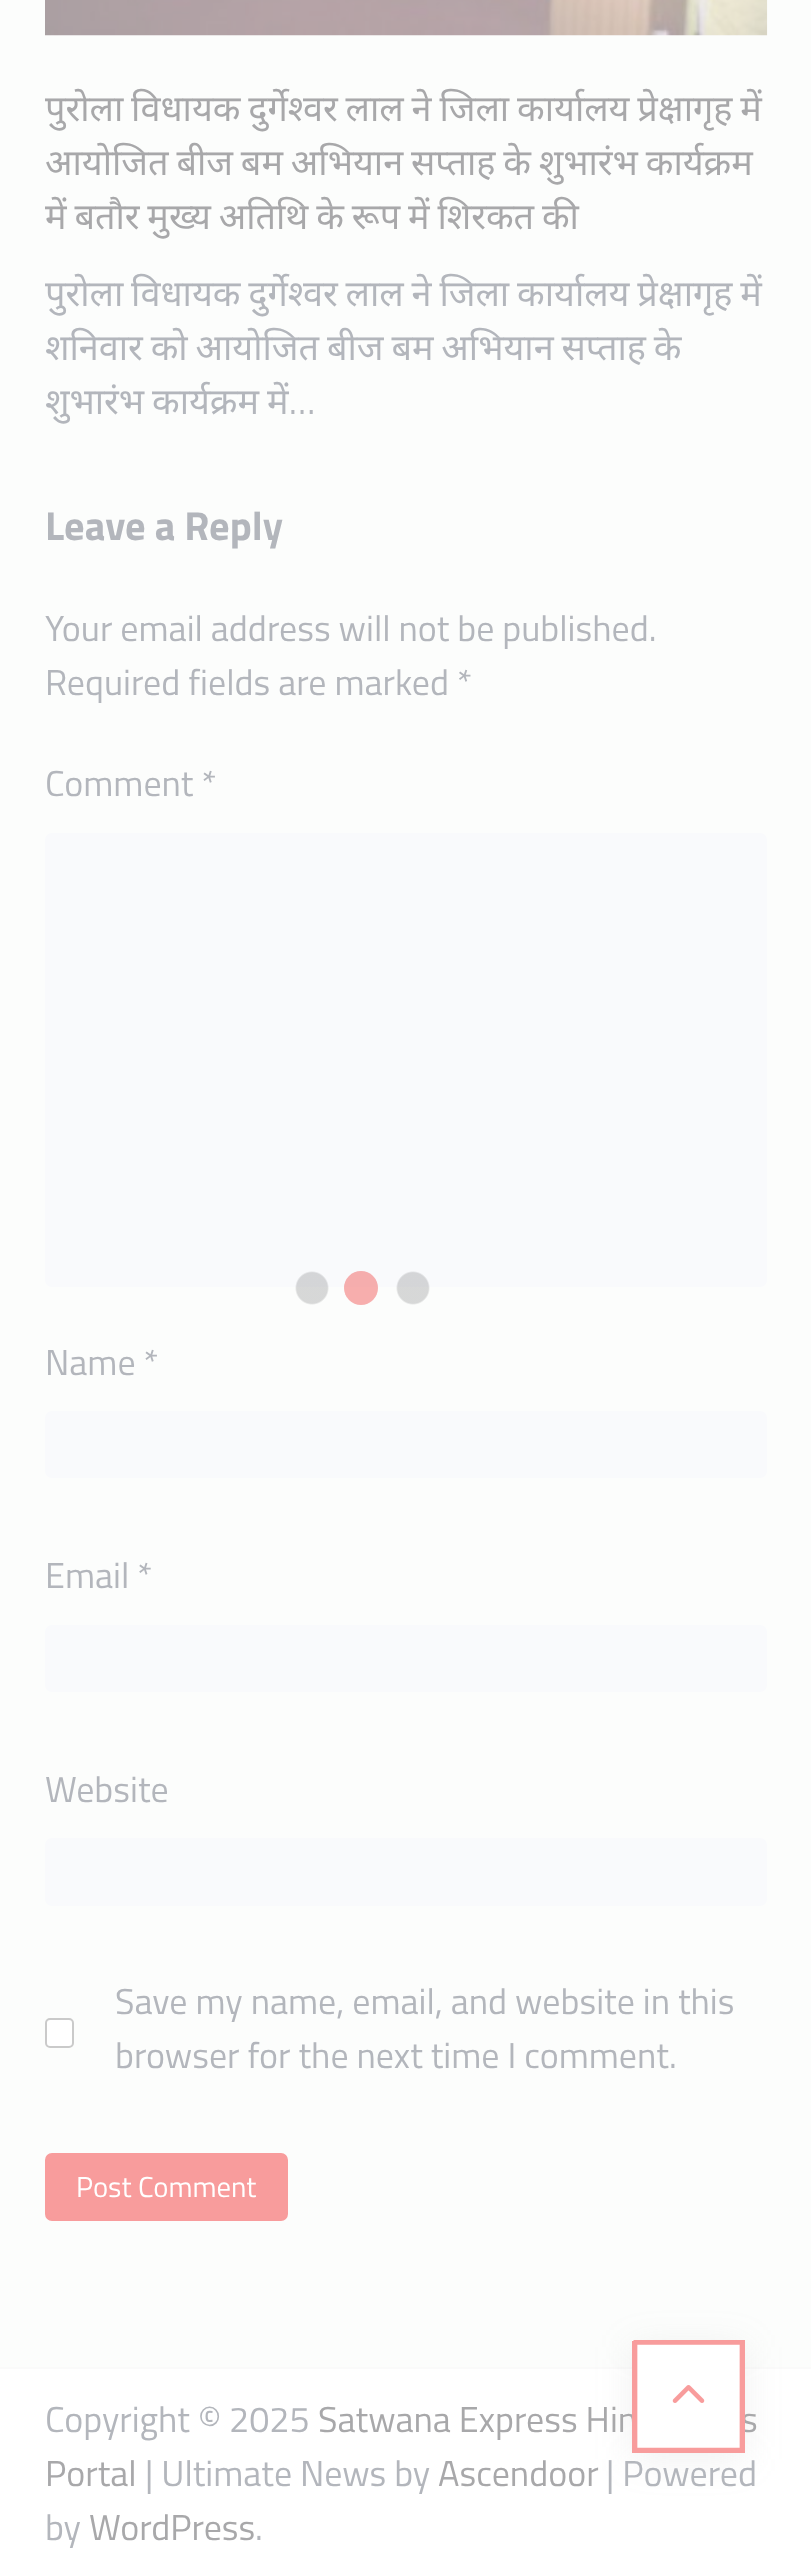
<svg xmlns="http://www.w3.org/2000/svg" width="811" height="2576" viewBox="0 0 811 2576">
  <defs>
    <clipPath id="clip1"><rect x="45" y="0" width="722" height="2322"/></clipPath>
    <radialGradient id="g1" gradientUnits="userSpaceOnUse" cx="413" cy="1288" r="17"><stop offset="0.9" stop-color="rgb(32,33,36)" stop-opacity="0.17"/><stop offset="1" stop-color="rgb(32,33,36)" stop-opacity="0"/></radialGradient>
    <radialGradient id="g2" gradientUnits="userSpaceOnUse" cx="312" cy="1288" r="17"><stop offset="0.9" stop-color="rgb(32,33,36)" stop-opacity="0.17"/><stop offset="1" stop-color="rgb(32,33,36)" stop-opacity="0"/></radialGradient>
    <clipPath id="clip2"><rect x="632" y="2340" width="113" height="113"/></clipPath>
  </defs>
  <rect width="100%" height="100%" fill="rgb(252,253,252)"/>
  <image x="45" y="0" width="723" height="36" href="pic1.png"/>
  <g clip-path="url(#clip1)">
    <text x="45" y="121" word-spacing="-1.5" font-family="Noto Sans" font-size="36" fill="rgb(168,168,170)">पुरोला विधायक दुर्गेश्वर लाल ने जिला कार्यालय प्रेक्षागृह में</text>
  </g>
  <text x="45" y="175" word-spacing="-1.5" font-family="Noto Sans" font-size="36" fill="rgb(168,168,170)">आयोजित बीज बम अभियान सप्ताह के शुभारंभ कार्यक्रम</text>
  <g clip-path="url(#clip1)">
    <text x="45" y="229" word-spacing="-1.5" font-family="Noto Sans" font-size="36" fill="rgb(168,168,170)">में बतौर मुख्य अतिथि के रूप में शिरकत की</text>
    <text x="45" y="306" word-spacing="-1.5" font-family="Noto Sans" font-size="36" fill="rgb(179,182,188)">पुरोला विधायक दुर्गेश्वर लाल ने जिला कार्यालय प्रेक्षागृह में</text>
  </g>
  <text x="45" y="360" word-spacing="-1.5" font-family="Noto Sans" font-size="36" fill="rgb(179,182,188)">शनिवार को आयोजित बीज बम अभियान सप्ताह के</text>
  <g clip-path="url(#clip1)">
    <text x="45" y="414" word-spacing="-1.5" font-family="Noto Sans" font-size="36" fill="rgb(179,182,188)">शुभारंभ कार्यक्रम में</text>
  </g>
  <text x="289" y="414" font-family="Titillium Web" font-size="36" fill="rgb(179,182,188)">…</text>
  <text x="45" y="540" font-family="Titillium Web" font-size="40.5" font-weight="bold" fill="rgb(179,182,188)">Leave a Reply</text>
  <g font-family="Titillium Web" font-size="36" fill="rgb(179,182,188)">
    <text>
      <tspan x="45" y="641">Your email address will not be published.</tspan>
      <tspan x="45" y="695">Required fields are marked *</tspan>
    </text>
    <text x="45" y="796">Comment *</text>
  </g>
  <rect x="45" y="833" width="722" height="454" rx="7" fill="rgb(249,250,252)"/>
  <text x="45" y="1375" font-family="Titillium Web" font-size="36" fill="rgb(179,182,188)">Name *</text>
  <rect x="45" y="1411" width="722" height="67" rx="7" fill="rgb(249,250,252)"/>
  <text x="45" y="1588" font-family="Titillium Web" font-size="36" fill="rgb(179,182,188)">Email *</text>
  <rect x="45" y="1625" width="722" height="67" rx="7" fill="rgb(249,250,252)"/>
  <text x="45" y="1802" font-family="Titillium Web" font-size="36" fill="rgb(179,182,188)">Website</text>
  <rect x="45" y="1838" width="722" height="68" rx="7" fill="rgb(249,250,252)"/>
  <rect x="46" y="2019" width="27" height="28" rx="4" fill="rgb(255,255,255)" stroke="rgb(202,202,202)" stroke-width="2"/>
  <g font-family="Titillium Web" font-size="36" fill="rgb(179,182,188)">
    <text>
      <tspan x="115" y="2014">Save my name, email, and website in this</tspan>
      <tspan x="115" y="2068">browser for the next time I comment.</tspan>
    </text>
  </g>
  <rect x="46" y="2154" width="241" height="66" rx="6" fill="rgb(248,156,156)" stroke="rgb(248,156,156)" stroke-width="2"/>
  <text x="76" y="2197" font-family="Titillium Web" font-size="28.75" fill="rgb(255,255,255)">Post Comment</text>
  <rect x="396" y="1271" width="34" height="34" fill="url(#g1)"/>
  <rect x="295" y="1271" width="34" height="34" fill="url(#g2)"/>
  <circle cx="361" cy="1288" r="17" fill="rgba(236,0,0,0.17)"/>
  <circle cx="361" cy="1288" r="17" fill="rgba(236,0,0,0.17)"/>
  <rect x="0" y="2369" width="811" height="207" fill="rgb(255,255,255)"/>
  <rect x="0" y="2367" width="811" height="2" fill="rgb(250,250,250)"/>
  <rect x="632" y="2347" width="113" height="112" fill="rgba(156,156,156,0.15)" filter="blur(18px)"/>
  <text x="318" y="2432" font-family="Titillium Web" font-size="36" fill="rgb(168,168,170)">Satwana Express Hin</text>
  <rect x="632" y="2340" width="108" height="108" fill="rgb(255,255,255)"/>
  <image x="672" y="2385" width="33" height="18" href="pic2.png"/>
  <text x="741" y="2432" font-family="Titillium Web" font-size="36" fill="rgb(168,168,170)">s</text>
  <g clip-path="url(#clip2)">
    <path d="M633.5 2341H743.5V2451.5H633.5V2341" fill="none" stroke="rgb(248,156,156)" stroke-width="7.7"/>
  </g>
  <text x="45" y="2432" font-family="Titillium Web" font-size="36" fill="rgb(179,182,188)">Copyright © 2025</text>
  <text x="45" y="2486" font-family="Titillium Web" font-size="36" fill="rgb(168,168,170)">Portal</text>
  <text x="145" y="2486" font-family="Titillium Web" font-size="36" fill="rgb(179,182,188)">| Ultimate News by</text>
  <text x="438" y="2486" font-family="Titillium Web" font-size="36" fill="rgb(168,168,170)">Ascendoor</text>
  <g font-family="Titillium Web" font-size="36" fill="rgb(179,182,188)">
    <text x="606" y="2486">| Powered</text>
    <text x="45" y="2540">by</text>
  </g>
  <text x="89" y="2540" font-family="Titillium Web" font-size="36" fill="rgb(168,168,170)">WordPress</text>
  <text x="255" y="2540" font-family="Titillium Web" font-size="36" fill="rgb(179,182,188)">.</text>
</svg>
